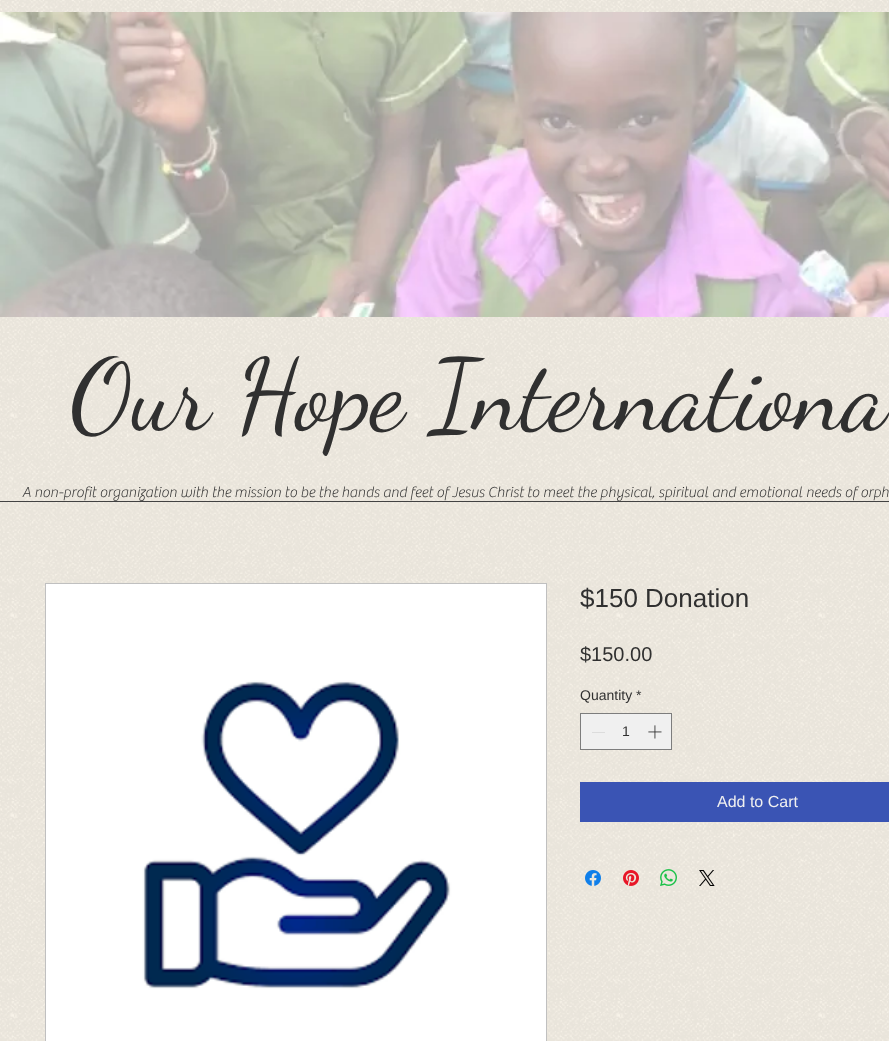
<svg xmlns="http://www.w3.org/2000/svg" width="889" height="1041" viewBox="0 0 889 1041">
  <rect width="100%" height="100%" fill="rgb(255,255,255)"/>
  <image x="0" y="0" width="889" height="1041" href="pic1.png"/>
  <image x="0" y="12" width="889" height="305" href="pic2.png"/>
  <text x="70" y="428" font-family="Dancing Script" font-size="100" fill="rgb(48,48,48)">Our Hope Internationa</text>
  <text x="22" y="497" font-family="'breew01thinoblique'" font-size="15" font-weight="100" fill="rgb(48,48,48)">A non-profit organization with the mission to be the hands and feet of Jesus Christ to meet the physical, spiritual and emotional needs of orph</text>
  <rect x="0" y="501" width="889" height="1" fill="rgb(66,66,66)"/>
  <rect x="45.5" y="583.5" width="501" height="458" fill="none" stroke="rgb(192,192,192)"/>
  <image x="46" y="584" width="500" height="457" href="pic3.png"/>
  <text x="580" y="607" font-family="Liberation Sans" font-size="26" fill="rgb(48,48,48)">$150 Donation</text>
  <text x="580" y="661" font-family="Liberation Sans" font-size="20" fill="rgb(48,48,48)">$150.00</text>
  <text x="580" y="700" font-family="Liberation Sans" font-size="14" fill="rgb(48,48,48)">Quantity *</text>
  <rect x="580.5" y="713.5" width="91" height="36" fill="rgb(240,240,240)" stroke="rgb(125,125,125)"/>
  <rect x="592" y="732" width="13" height="1" fill="rgb(220,220,220)"/>
  <text x="622" y="736" font-family="Liberation Sans" font-size="14" fill="rgb(48,48,48)">1</text>
  <image x="648" y="725" width="14" height="14" href="pic4.png"/>
  <rect x="580" y="782" width="309" height="40" fill="rgb(58,84,180)"/>
  <text x="717" y="807" font-family="Liberation Sans" font-size="16" fill="rgb(240,240,240)">Add to Cart</text>
  <image x="585" y="870" width="16" height="16" href="pic5.png"/>
  <image x="623" y="870" width="16" height="16" href="pic6.png"/>
  <image x="660" y="869" width="17" height="17" href="pic7.png"/>
  <image x="699" y="870" width="16" height="16" href="pic8.png"/>
</svg>
